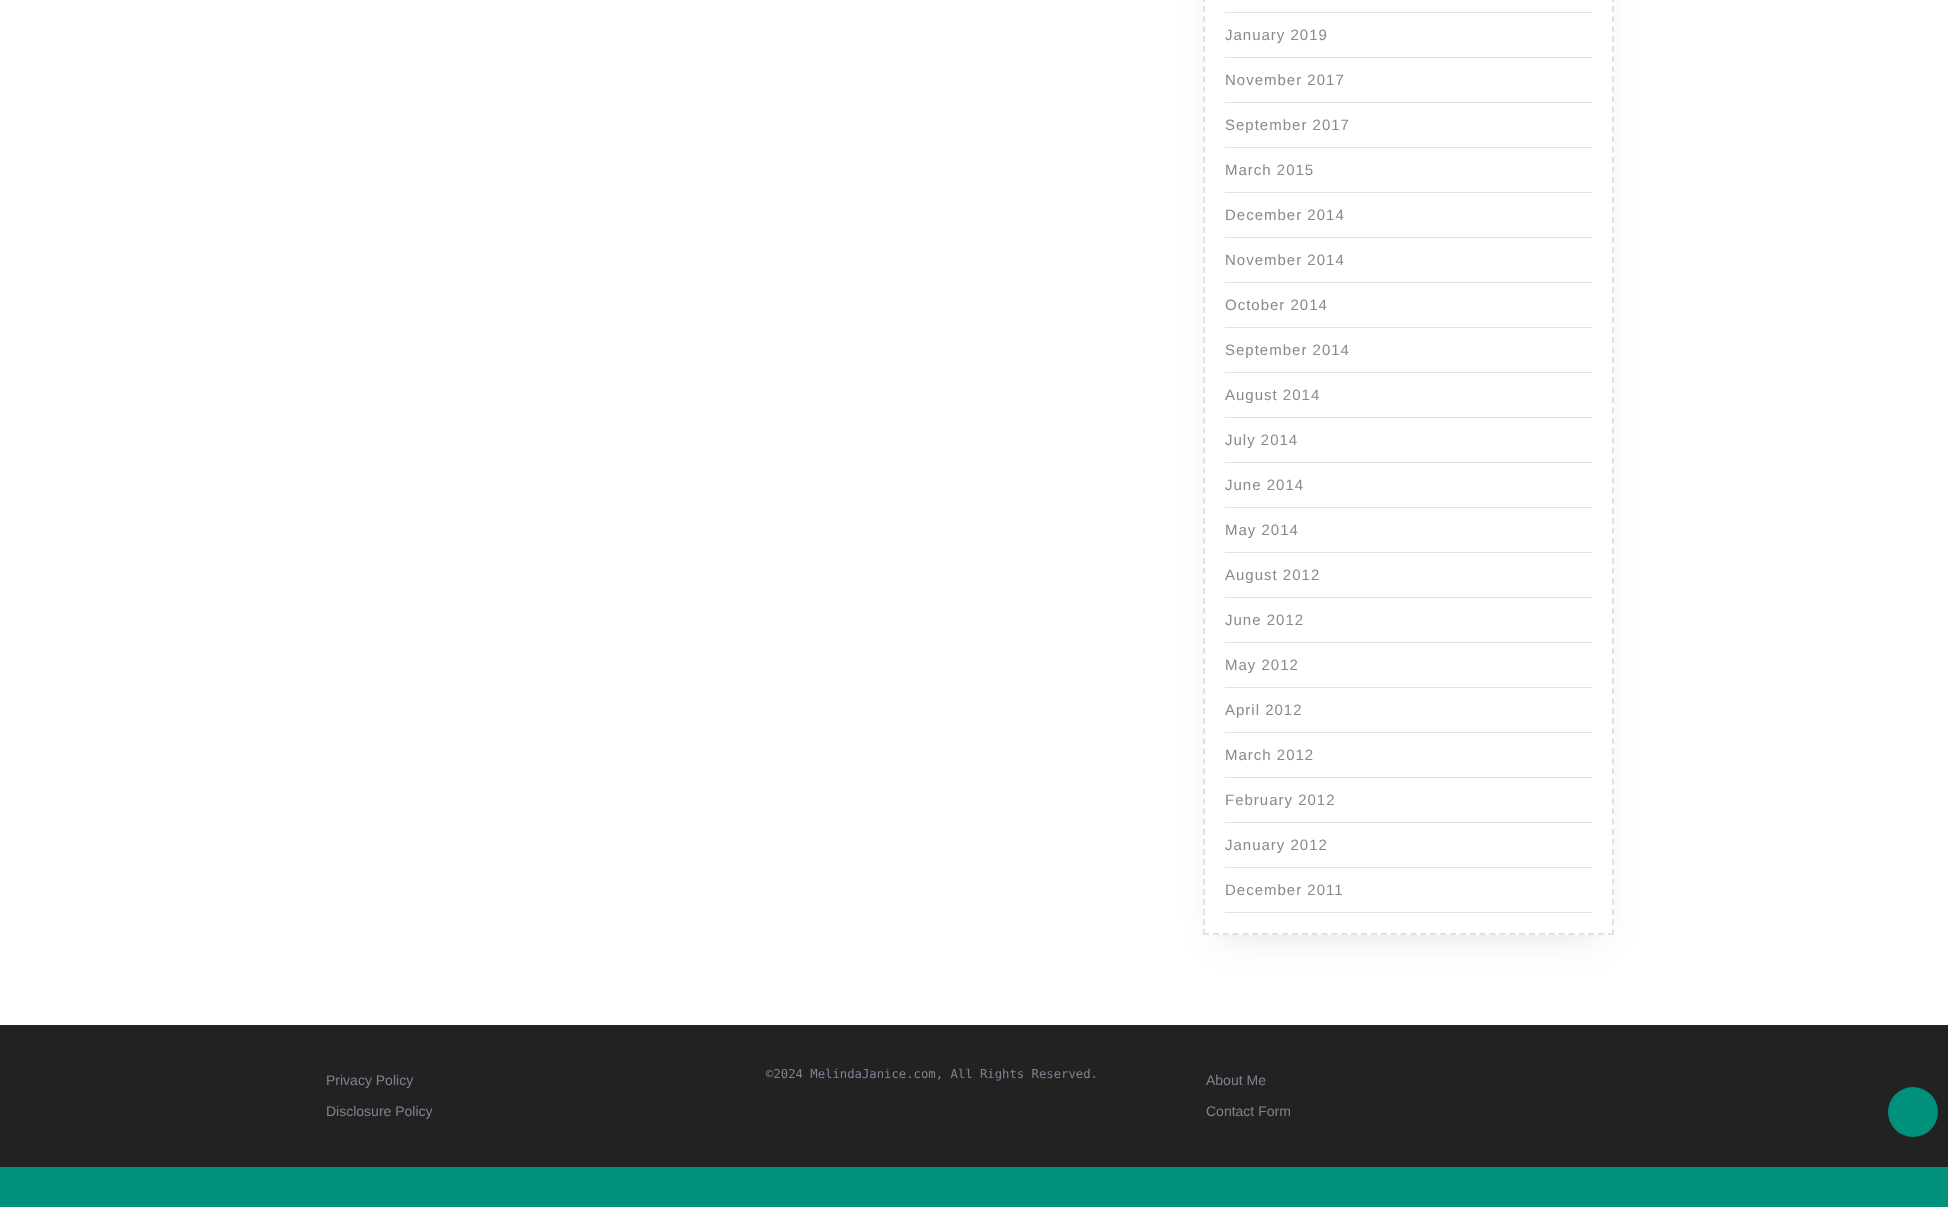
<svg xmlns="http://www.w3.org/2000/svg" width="1948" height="1207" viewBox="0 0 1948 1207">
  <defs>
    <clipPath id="clip1"><path d="M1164 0H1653V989H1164ZM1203-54H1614V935H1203Z" clip-rule="evenodd"/></clipPath>
  </defs>
  <rect width="100%" height="100%" fill="rgb(255,255,255)"/>
  <g clip-path="url(#clip1)">
    <rect x="1218" y="-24" width="381" height="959" fill="rgb(225,225,225)" filter="blur(17.5px)"/>
  </g>
  <path d="M1613-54V935" fill="none" stroke="rgb(225,225,225)" stroke-width="2" stroke-dasharray="6 4.03"/>
  <path d="M1203 934H1614" fill="none" stroke="rgb(225,225,225)" stroke-width="2" stroke-dasharray="6 3.88"/>
  <path d="M1204-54V935" fill="none" stroke="rgb(225,225,225)" stroke-width="2" stroke-dasharray="6 4.03"/>
  <rect x="1225" y="12" width="367" height="1" fill="rgb(225,225,225)"/>
  <rect x="1225" y="57" width="367" height="1" fill="rgb(225,225,225)"/>
  <text x="1225" y="40" font-family="Liberation Sans" font-size="15" letter-spacing="1" fill="rgb(137,137,137)">January 2019</text>
  <rect x="1225" y="102" width="367" height="1" fill="rgb(225,225,225)"/>
  <text x="1225" y="85" font-family="Liberation Sans" font-size="15" letter-spacing="1" fill="rgb(137,137,137)">November 2017</text>
  <rect x="1225" y="147" width="367" height="1" fill="rgb(225,225,225)"/>
  <text x="1225" y="130" font-family="Liberation Sans" font-size="15" letter-spacing="1" fill="rgb(137,137,137)">September 2017</text>
  <rect x="1225" y="192" width="367" height="1" fill="rgb(225,225,225)"/>
  <text x="1225" y="175" font-family="Liberation Sans" font-size="15" letter-spacing="1" fill="rgb(137,137,137)">March 2015</text>
  <rect x="1225" y="237" width="367" height="1" fill="rgb(225,225,225)"/>
  <text x="1225" y="220" font-family="Liberation Sans" font-size="15" letter-spacing="1" fill="rgb(137,137,137)">December 2014</text>
  <rect x="1225" y="282" width="367" height="1" fill="rgb(225,225,225)"/>
  <text x="1225" y="265" font-family="Liberation Sans" font-size="15" letter-spacing="1" fill="rgb(137,137,137)">November 2014</text>
  <rect x="1225" y="327" width="367" height="1" fill="rgb(225,225,225)"/>
  <text x="1225" y="310" font-family="Liberation Sans" font-size="15" letter-spacing="1" fill="rgb(137,137,137)">October 2014</text>
  <rect x="1225" y="372" width="367" height="1" fill="rgb(225,225,225)"/>
  <text x="1225" y="355" font-family="Liberation Sans" font-size="15" letter-spacing="1" fill="rgb(137,137,137)">September 2014</text>
  <rect x="1225" y="417" width="367" height="1" fill="rgb(225,225,225)"/>
  <text x="1225" y="400" font-family="Liberation Sans" font-size="15" letter-spacing="1" fill="rgb(137,137,137)">August 2014</text>
  <rect x="1225" y="462" width="367" height="1" fill="rgb(225,225,225)"/>
  <text x="1225" y="445" font-family="Liberation Sans" font-size="15" letter-spacing="1" fill="rgb(137,137,137)">July 2014</text>
  <rect x="1225" y="507" width="367" height="1" fill="rgb(225,225,225)"/>
  <text x="1225" y="490" font-family="Liberation Sans" font-size="15" letter-spacing="1" fill="rgb(137,137,137)">June 2014</text>
  <rect x="1225" y="552" width="367" height="1" fill="rgb(225,225,225)"/>
  <text x="1225" y="535" font-family="Liberation Sans" font-size="15" letter-spacing="1" fill="rgb(137,137,137)">May 2014</text>
  <rect x="1225" y="597" width="367" height="1" fill="rgb(225,225,225)"/>
  <text x="1225" y="580" font-family="Liberation Sans" font-size="15" letter-spacing="1" fill="rgb(137,137,137)">August 2012</text>
  <rect x="1225" y="642" width="367" height="1" fill="rgb(225,225,225)"/>
  <text x="1225" y="625" font-family="Liberation Sans" font-size="15" letter-spacing="1" fill="rgb(137,137,137)">June 2012</text>
  <rect x="1225" y="687" width="367" height="1" fill="rgb(225,225,225)"/>
  <text x="1225" y="670" font-family="Liberation Sans" font-size="15" letter-spacing="1" fill="rgb(137,137,137)">May 2012</text>
  <rect x="1225" y="732" width="367" height="1" fill="rgb(225,225,225)"/>
  <text x="1225" y="715" font-family="Liberation Sans" font-size="15" letter-spacing="1" fill="rgb(137,137,137)">April 2012</text>
  <rect x="1225" y="777" width="367" height="1" fill="rgb(225,225,225)"/>
  <text x="1225" y="760" font-family="Liberation Sans" font-size="15" letter-spacing="1" fill="rgb(137,137,137)">March 2012</text>
  <rect x="1225" y="822" width="367" height="1" fill="rgb(225,225,225)"/>
  <text x="1225" y="805" font-family="Liberation Sans" font-size="15" letter-spacing="1" fill="rgb(137,137,137)">February 2012</text>
  <rect x="1225" y="867" width="367" height="1" fill="rgb(225,225,225)"/>
  <text x="1225" y="850" font-family="Liberation Sans" font-size="15" letter-spacing="1" fill="rgb(137,137,137)">January 2012</text>
  <rect x="1225" y="912" width="367" height="1" fill="rgb(225,225,225)"/>
  <text x="1225" y="895" font-family="Liberation Sans" font-size="15" letter-spacing="1" fill="rgb(137,137,137)">December 2011</text>
  <rect x="0" y="1025" width="1948" height="142" fill="rgb(34,34,34)"/>
  <g font-family="Liberation Sans" font-size="14" fill="rgb(127,131,145)">
    <text x="326" y="1085">Privacy Policy</text>
    <text x="326" y="1116">Disclosure Policy</text>
  </g>
  <text x="766" y="1078" font-family="DejaVu Sans Mono" font-size="12.25" fill="rgb(127,131,145)">©2024 MelindaJanice.com, All Rights Reserved.</text>
  <g font-family="Liberation Sans" font-size="14" fill="rgb(127,131,145)">
    <text x="1206" y="1085">About Me</text>
    <text x="1206" y="1116">Contact Form</text>
  </g>
  <rect x="0" y="1167" width="1948" height="40" fill="rgb(0,145,124)"/>
  <circle cx="1913" cy="1112" r="25" fill="rgb(0,145,124)"/>
</svg>
